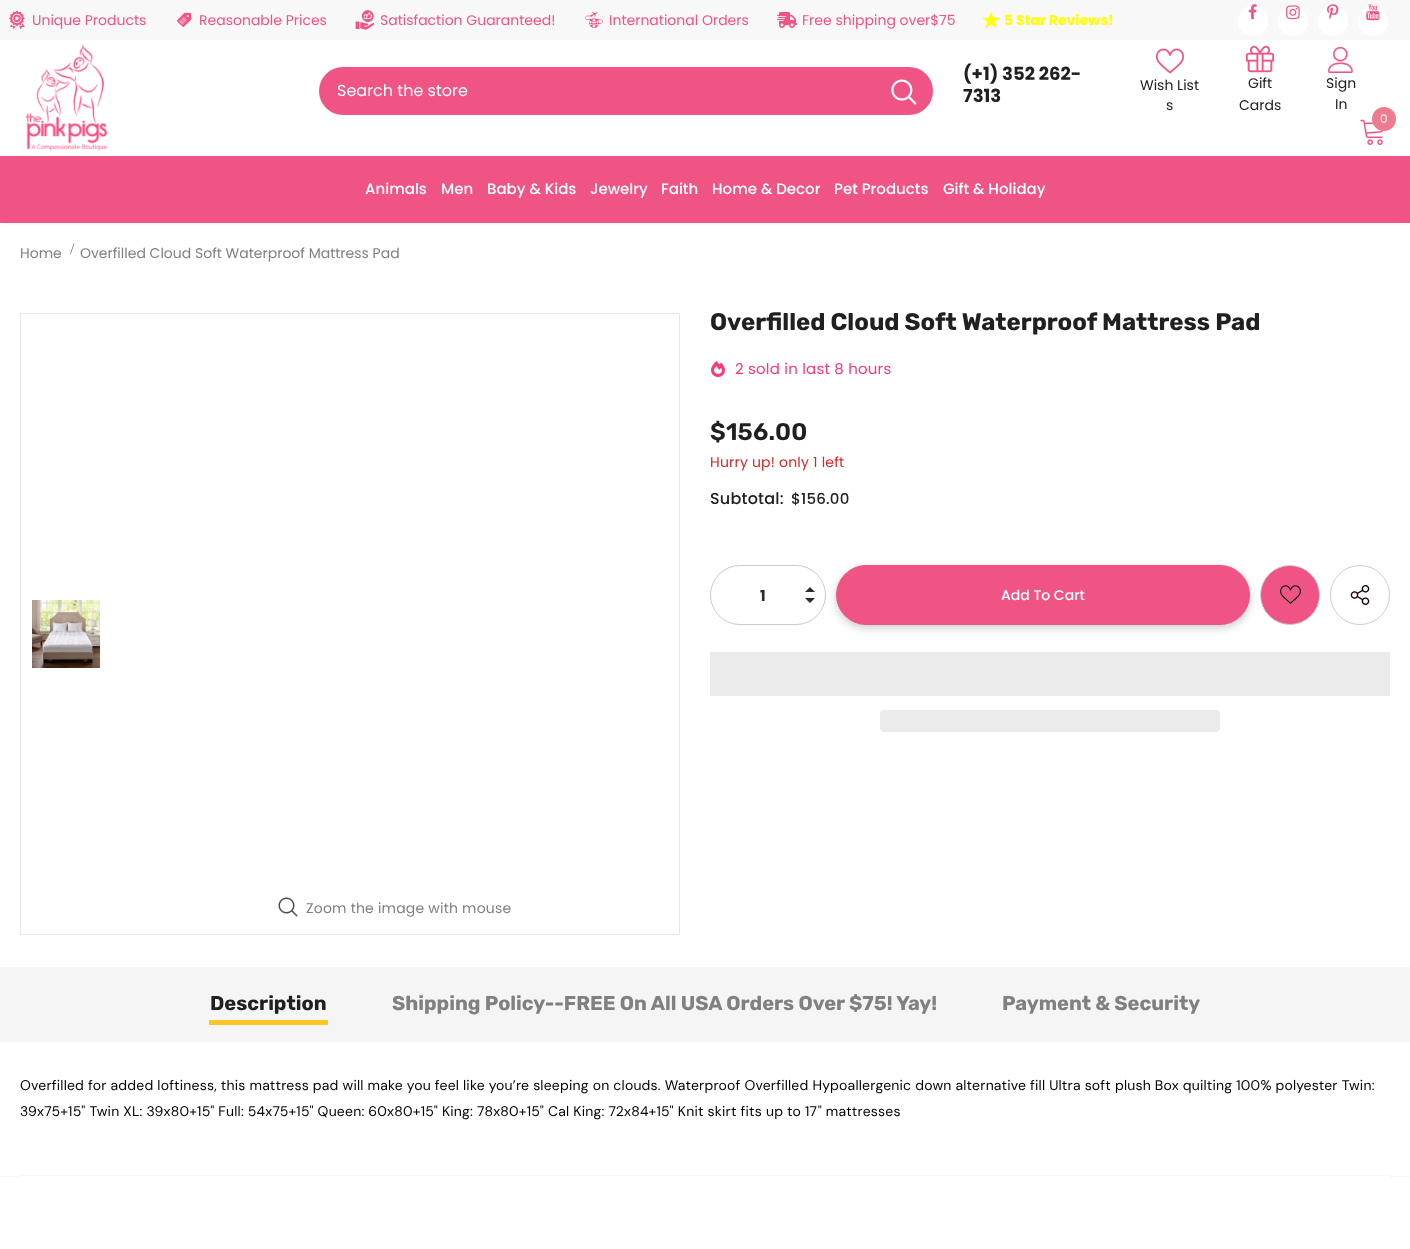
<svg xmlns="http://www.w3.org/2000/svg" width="1410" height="1249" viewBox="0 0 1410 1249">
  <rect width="100%" height="100%" fill="rgb(255,255,255)"/>
  <rect x="0" y="0" width="1410" height="40" fill="rgb(248,248,248)"/>
  <image x="9" y="10" width="16" height="20" href="pic1.png"/>
  <text x="32" y="25" font-family="Poppins" font-size="14" fill="rgb(240,84,132)">Unique Products</text>
  <image x="176" y="12" width="16" height="16" href="pic2.png"/>
  <text x="199" y="25" font-family="Poppins" font-size="14" fill="rgb(240,84,132)">Reasonable Prices</text>
  <image x="355" y="10" width="20" height="20" href="pic3.png"/>
  <text x="380" y="25" font-family="Poppins" font-size="14" fill="rgb(240,84,132)">Satisfaction Guaranteed!</text>
  <image x="585" y="12" width="18" height="16" href="pic4.png"/>
  <text x="609" y="25" font-family="Poppins" font-size="14" fill="rgb(240,84,132)">International Orders</text>
  <image x="777" y="11" width="20" height="17" href="pic5.png"/>
  <text x="802" y="25" font-family="Poppins" font-size="14" fill="rgb(240,84,132)">Free shipping over$75</text>
  <image x="983" y="12" width="16" height="16" href="pic6.png"/>
  <text x="1004" y="25" font-family="Poppins" font-size="14" font-weight="bold" fill="rgb(255,255,0)">5 Star Reviews!</text>
  <circle cx="1253" cy="21" r="15" fill="rgb(255,255,255)"/>
  <image x="1248" y="4" width="9" height="16" href="pic7.png"/>
  <circle cx="1293" cy="21" r="15" fill="rgb(255,255,255)"/>
  <image x="1286" y="5" width="14" height="15" href="pic8.png"/>
  <circle cx="1333" cy="21" r="15" fill="rgb(255,255,255)"/>
  <image x="1327" y="4" width="12" height="16" href="pic9.png"/>
  <circle cx="1373" cy="21" r="15" fill="rgb(255,255,255)"/>
  <image x="1366" y="4" width="14" height="17" href="pic10.png"/>
  <image x="25" y="44" width="83" height="107" href="pic11.png"/>
  <rect x="319" y="67" width="614" height="48" rx="24" fill="rgb(240,84,132)"/>
  <text x="337" y="96" font-family="Poppins" font-size="16" fill="rgb(255,255,255)">Search the store</text>
  <image x="891" y="79" width="26" height="26" href="pic12.png"/>
  <g font-family="Poppins" font-size="18" font-weight="bold" fill="rgb(32,32,32)">
    <text>
      <tspan x="963" y="80">(+1) 352 262-</tspan>
      <tspan x="963" y="102">7313</tspan>
    </text>
  </g>
  <image x="1155" y="48" width="30" height="26" href="pic13.png"/>
  <g font-family="Poppins" font-size="14" fill="rgb(32,32,32)">
    <text x="1140" y="90">Wish List</text>
    <text x="1166" y="110">s</text>
  </g>
  <image x="1245" y="45" width="30" height="28" href="pic14.png"/>
  <g font-family="Poppins" font-size="14" fill="rgb(32,32,32)">
    <text x="1248" y="88">Gift</text>
    <text x="1239" y="110">Cards</text>
  </g>
  <image x="1327" y="47" width="26" height="26" href="pic15.png"/>
  <g font-family="Poppins" font-size="14" fill="rgb(32,32,32)">
    <text x="1326" y="88">Sign</text>
    <text x="1335" y="109">In</text>
  </g>
  <image x="1360" y="119" width="24" height="26" href="pic16.png"/>
  <circle cx="1384" cy="119" r="12" fill="rgb(239,124,142)"/>
  <text x="1380" y="123" font-family="Poppins" font-size="12" fill="rgb(255,255,255)">0</text>
  <rect x="3" y="162" width="1404" height="61" fill="rgba(0,0,0,0.1)" filter="blur(1.5px)"/>
  <rect x="0" y="156" width="1410" height="67" fill="rgb(240,84,132)"/>
  <g font-family="Poppins" font-size="15" font-weight="500" fill="rgb(255,255,255)">
    <text x="365" y="194">Animals</text>
    <text x="441" y="194">Men</text>
    <text x="487" y="194">Baby &amp; Kids</text>
    <text x="590" y="194">Jewelry</text>
    <text x="661" y="194">Faith</text>
    <text x="712" y="194">Home &amp; Decor</text>
    <text x="834" y="194">Pet Products</text>
    <text x="943" y="194">Gift &amp; Holiday</text>
  </g>
  <text x="20" y="258" font-family="Poppins" font-size="14" fill="rgb(128,128,128)">Home</text>
  <text x="70" y="254" font-family="Liberation Serif" font-size="16" fill="rgb(128,128,128)">/</text>
  <text x="80" y="258" font-family="Poppins" font-size="14" fill="rgb(128,128,128)">Overfilled Cloud Soft Waterproof Mattress Pad</text>
  <text x="710" y="330" font-family="Rubik" font-size="24" font-weight="bold" fill="rgb(32,32,32)">Overfilled Cloud Soft Waterproof Mattress Pad</text>
  <image x="711" y="361" width="14" height="16" href="pic17.png"/>
  <text x="735" y="374" font-family="Poppins" font-size="15" letter-spacing="0.2" fill="rgb(247,59,125)">2 sold in last 8 hours</text>
  <text x="710" y="440" font-family="Rubik" font-size="24" font-weight="600" letter-spacing="0.2" fill="rgb(32,32,32)">$156.00</text>
  <text x="710" y="467" font-family="Poppins" font-size="14" letter-spacing="0.2" fill="rgb(214,40,40)">Hurry up! only 1 left</text>
  <text x="710" y="504" font-family="Poppins" font-size="16" font-weight="500" letter-spacing="0.2" fill="rgb(32,32,32)">Subtotal:</text>
  <text x="791" y="504" font-family="Poppins" font-size="15" font-weight="500" letter-spacing="0.2" fill="rgb(32,32,32)">$156.00</text>
  <rect x="836" y="568" width="414" height="60" rx="30" fill="rgba(0,0,0,0.2)" filter="blur(4px)"/>
  <rect x="710.5" y="565.5" width="115" height="59" rx="29.5" fill="none" stroke="rgb(203,203,203)"/>
  <text x="760" y="601" font-family="Poppins" font-size="15" font-weight="bold" fill="rgb(45,45,45)">1</text>
  <path d="M805 598H815L810 603ZM815 592H805L810 587Z" fill="rgb(45,45,45)"/>
  <rect x="836.5" y="565.5" width="413" height="59" rx="29.5" fill="rgb(240,84,132)" stroke="rgb(240,84,132)"/>
  <text x="1001" y="600" font-family="Poppins" font-size="14" font-weight="500" fill="rgb(255,255,255)">Add To Cart</text>
  <circle cx="1290" cy="595" r="29.5" fill="rgb(240,84,132)" stroke="rgb(205,205,205)"/>
  <image x="1280" y="585" width="21" height="19" href="pic18.png"/>
  <circle cx="1360" cy="595" r="29.5" fill="none" stroke="rgb(205,205,205)"/>
  <image x="1350" y="585" width="20" height="20" href="pic19.png"/>
  <rect x="710" y="652" width="680" height="44" fill="rgb(235,235,235)"/>
  <rect x="880" y="710" width="340" height="22" rx="4" fill="rgb(235,235,235)"/>
  <rect x="20.5" y="313.5" width="659" height="621" fill="none" stroke="rgb(230,230,230)"/>
  <image x="32" y="600" width="68" height="68" href="pic20.png"/>
  <image x="278" y="897" width="20" height="20" href="pic21.png"/>
  <text x="306" y="913" font-family="Poppins" font-size="14" letter-spacing="0.2" fill="rgb(128,128,128)">Zoom the image with mouse</text>
  <rect x="0" y="967" width="1410" height="75" fill="rgb(245,245,245)"/>
  <text x="210" y="1010" font-family="Rubik" font-size="20" font-weight="bold" fill="rgb(32,32,32)">Description</text>
  <rect x="209" y="1020" width="119" height="5" fill="rgb(253,197,37)"/>
  <g font-family="Rubik" font-size="20" font-weight="bold" fill="rgb(128,128,128)">
    <text x="392" y="1010">Shipping Policy--FREE On All USA Orders Over $75! Yay!</text>
    <text x="1002" y="1010">Payment &amp; Security</text>
  </g>
  <g font-family="DM Sans" font-size="14" letter-spacing="0.2" fill="rgb(0,0,0)">
    <text>
      <tspan x="20" y="1090">Overfilled for added loftiness, this mattress pad will make you feel like you’re sleeping on clouds. Waterproof Overfilled Hypoallergenic down alternative fill Ultra soft plush Box quilting 100% polyester Twin:</tspan>
      <tspan x="20" y="1116">39x75+15" Twin XL: 39x80+15" Full: 54x75+15" Queen: 60x80+15" King: 78x80+15" Cal King: 72x84+15" Knit skirt fits up to 17" mattresses</tspan>
    </text>
  </g>
  <rect x="20" y="1175" width="1370" height="1" fill="rgb(246,246,246)"/>
  <rect x="0" y="1176" width="20" height="1" fill="rgb(246,246,246)"/>
  <rect x="1390" y="1176" width="20" height="1" fill="rgb(246,246,246)"/>
</svg>
